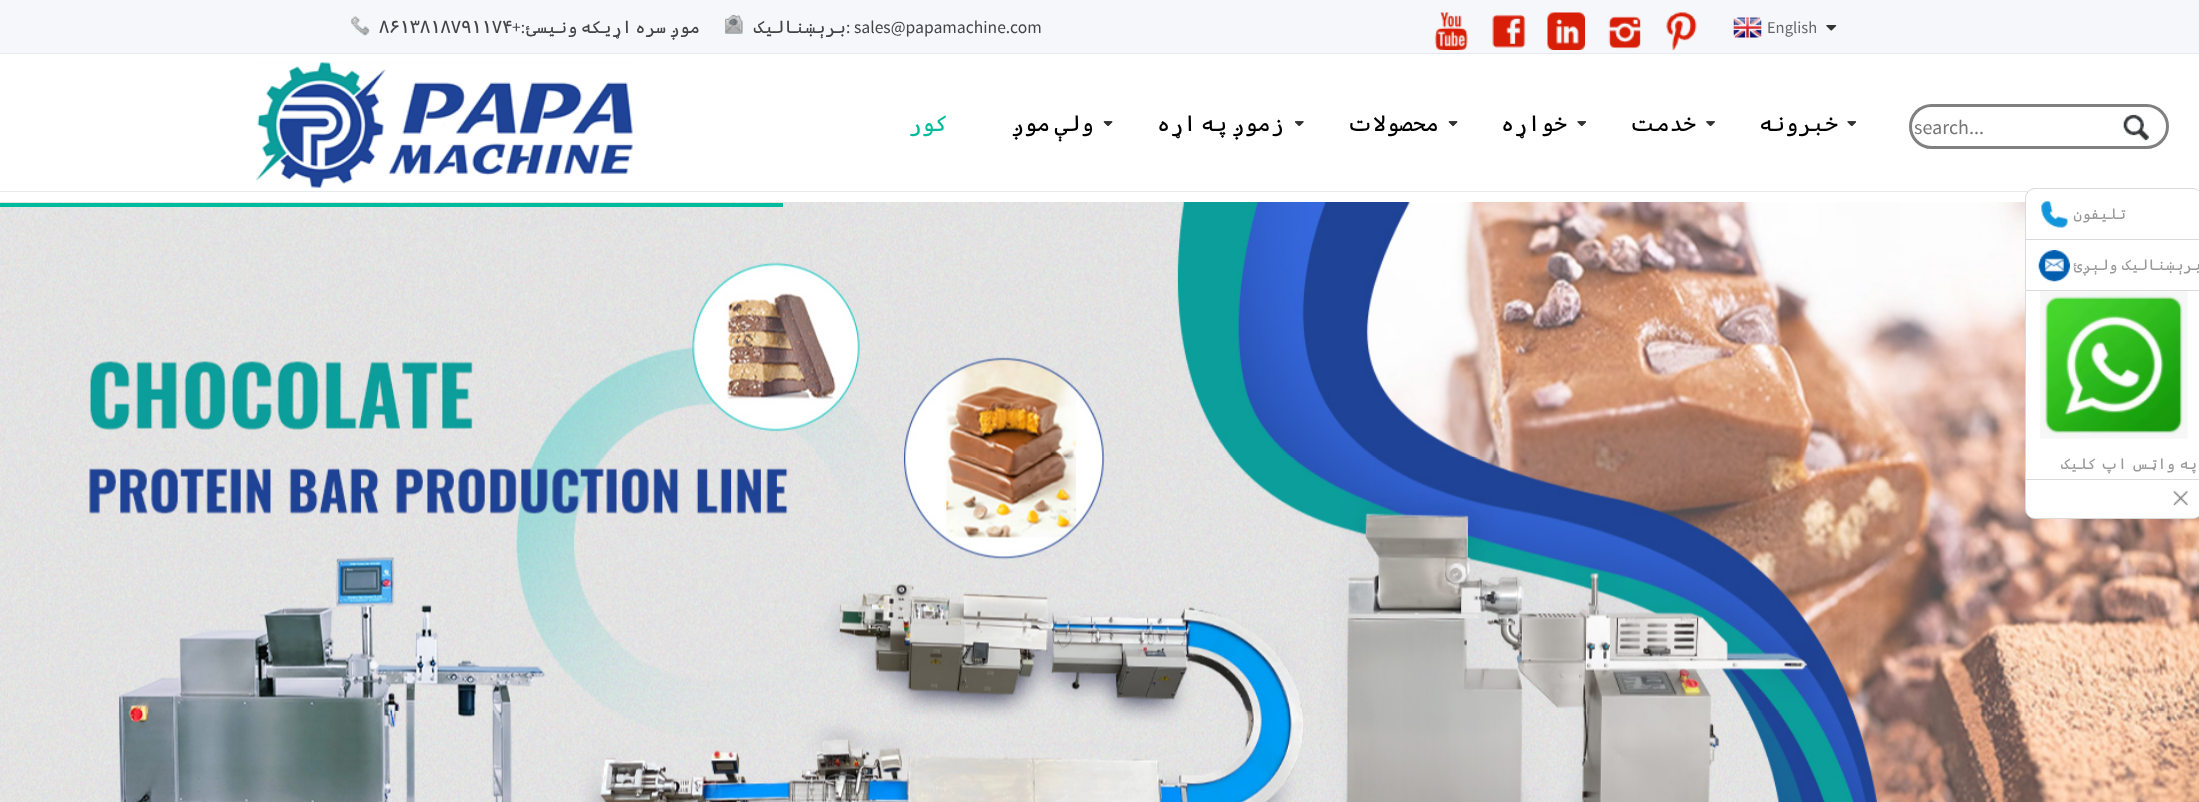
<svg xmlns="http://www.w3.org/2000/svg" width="2199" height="802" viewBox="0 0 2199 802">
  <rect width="100%" height="100%" fill="rgb(255,255,255)"/>
  <rect x="0" y="0" width="2199" height="53" fill="rgb(245,247,250)"/>
  <rect x="0" y="53" width="2199" height="1" fill="rgb(230,233,237)"/>
  <image x="1826" y="25" width="11" height="6" href="pic1.png"/>
  <text x="1767" y="33" font-family="Source Sans Pro" font-size="16.5" fill="rgb(102,102,102)">English</text>
  <image x="1733" y="17" width="29" height="21" href="pic2.png"/>
  <image x="1666" y="12" width="31" height="38" href="pic3.png"/>
  <image x="1608" y="16" width="33" height="33" href="pic4.png"/>
  <image x="1547" y="12" width="38" height="38" href="pic5.png"/>
  <image x="1492" y="14" width="34" height="34" href="pic6.png"/>
  <image x="1434" y="12" width="34" height="38" href="pic7.png"/>
  <text x="846" y="33" font-family="Source Sans Pro" font-size="17.5" fill="rgb(68,68,68)">: sales@papamachine.com</text>
  <text x="846" y="33" font-family="Cascadia Code" font-size="17.5" direction="rtl" fill="rgb(68,68,68)">برېښنالیک</text>
  <image x="725" y="14" width="18" height="20" href="pic8.png"/>
  <text x="700" y="33" word-spacing="-7" font-family="Cascadia Code" font-size="17.5" direction="rtl" fill="rgb(68,68,68)">موږ سره اړیکه ونیسئ</text>
  <text x="525" y="33" font-family="Source Sans Pro" font-size="17.5" direction="rtl" fill="rgb(68,68,68)">:</text>
  <text x="512" y="33" font-family="Source Sans Pro" font-size="17.5" fill="rgb(68,68,68)">+</text>
  <text x="379" y="33" font-family="Cascadia Code" font-size="17.5" fill="rgb(68,68,68)">۸۶۱۳۸۱۸۷۹۱۱۷۴</text>
  <image x="351" y="16" width="19" height="20" href="pic9.png"/>
  <rect x="0" y="191" width="2028" height="1" fill="rgb(230,233,237)"/>
  <rect x="1910.5" y="105.5" width="257" height="42" rx="21" fill="none" stroke="rgb(128,128,128)" stroke-width="3"/>
  <image x="2123" y="114" width="26" height="27" href="pic10.png"/>
  <text x="1914" y="134" font-family="Source Sans Pro" font-size="20" fill="rgb(117,117,117)">search...</text>
  <image x="1847" y="121" width="9" height="5" href="pic11.png"/>
  <text x="1838" y="131" font-family="Cascadia Code" font-size="22.5" direction="rtl" fill="rgb(0,0,0)">خبرونه</text>
  <image x="1847" y="121" width="9" height="5" href="pic12.png"/>
  <image x="1706" y="121" width="9" height="5" href="pic13.png"/>
  <text x="1696" y="131" font-family="Cascadia Code" font-size="22.5" direction="rtl" fill="rgb(0,0,0)">خدمت</text>
  <image x="1706" y="121" width="9" height="5" href="pic14.png"/>
  <image x="1577" y="121" width="9" height="5" href="pic11.png"/>
  <text x="1567" y="131" font-family="Cascadia Code" font-size="22.5" direction="rtl" fill="rgb(0,0,0)">خواړه</text>
  <image x="1577" y="121" width="9" height="5" href="pic12.png"/>
  <image x="1448" y="121" width="10" height="5" href="pic15.png"/>
  <text x="1439" y="131" font-family="Cascadia Code" font-size="22.5" direction="rtl" fill="rgb(0,0,0)">محصولات</text>
  <image x="1448" y="121" width="10" height="5" href="pic16.png"/>
  <image x="1295" y="121" width="9" height="5" href="pic17.png"/>
  <text x="1284" y="131" word-spacing="-9" font-family="Cascadia Code" font-size="22.5" direction="rtl" fill="rgb(0,0,0)">زموږ په اړه</text>
  <image x="1295" y="121" width="9" height="5" href="pic18.png"/>
  <image x="1103" y="121" width="10" height="5" href="pic15.png"/>
  <text x="1094" y="131" word-spacing="-9" font-family="Cascadia Code" font-size="22.5" direction="rtl" fill="rgb(0,0,0)">ولې موږ</text>
  <image x="1103" y="121" width="10" height="5" href="pic16.png"/>
  <text x="948" y="131" font-family="Cascadia Code" font-size="22.5" direction="rtl" fill="rgb(0,188,156)">کور</text>
  <image x="256" y="62" width="377" height="126" href="pic19.png"/>
  <image x="0" y="202" width="2199" height="600" href="pic20.png"/>
  <rect x="0" y="203" width="783" height="4" fill="rgb(0,188,156)"/>
  <rect x="2025.5" y="188.5" width="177" height="330" rx="9.5" fill="rgb(255,255,255)" stroke="rgb(218,218,218)"/>
  <rect x="2026" y="239" width="173" height="1" fill="rgb(218,218,218)"/>
  <text x="2126" y="219" font-family="Cascadia Code" font-size="15" direction="rtl" fill="rgb(153,153,153)">تلیفون</text>
  <image x="2041" y="201" width="27" height="27" href="pic21.png"/>
  <rect x="2026" y="290" width="173" height="1" fill="rgb(218,218,218)"/>
  <text x="2201" y="270" word-spacing="-4.5" font-family="Cascadia Code" font-size="15" direction="rtl" fill="rgb(153,153,153)">برېښنالیک ولېږئ</text>
  <image x="2038" y="250" width="32" height="32" href="pic22.png"/>
  <rect x="2026" y="479" width="173" height="1" fill="rgb(218,218,218)"/>
  <image x="2040" y="291" width="148" height="148" href="pic23.png"/>
  <text x="2197" y="469" word-spacing="-4.5" font-family="Cascadia Code" font-size="15" direction="rtl" fill="rgb(153,153,153)">په واټس اپ کلیک</text>
  <image x="2173" y="491" width="15" height="15" href="pic24.png"/>
</svg>
